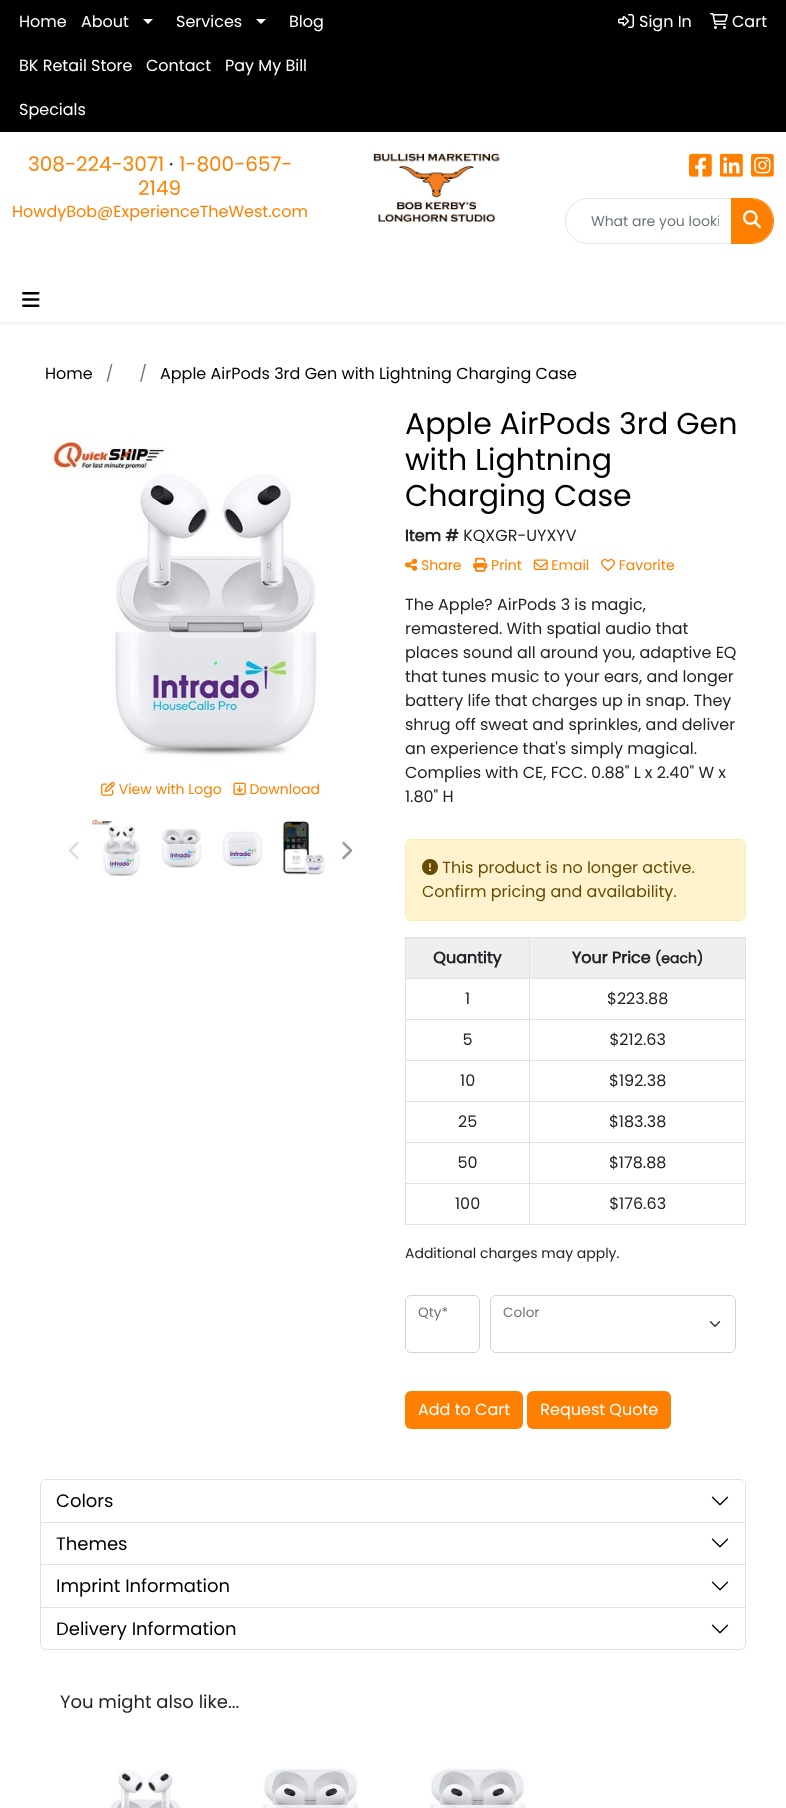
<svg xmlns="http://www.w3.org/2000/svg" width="786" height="1808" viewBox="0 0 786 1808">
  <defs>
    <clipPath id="clip1"><rect x="591" y="211" width="128" height="21"/></clipPath>
    <clipPath id="clip2"><rect x="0" y="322" width="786" height="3"/></clipPath>
  </defs>
  <rect width="100%" height="100%" fill="rgb(255,255,255)"/>
  <rect x="0" y="0" width="786" height="132" fill="rgb(0,0,0)"/>
  <g font-family="Poppins" font-size="16" fill="rgb(255,255,255)">
    <text x="19" y="27">Home</text>
    <text x="81" y="27">About</text>
  </g>
  <path d="M143 19H153L148 24Z" fill="rgb(255,255,255)"/>
  <text x="176" y="27" font-family="Poppins" font-size="16" fill="rgb(255,255,255)">Services</text>
  <path d="M256 19H266L261 24Z" fill="rgb(255,255,255)"/>
  <g font-family="Poppins" font-size="16" fill="rgb(255,255,255)">
    <text x="289" y="27">Blog</text>
    <text x="19" y="71">BK Retail Store</text>
    <text x="146" y="71">Contact</text>
    <text x="225" y="71">Pay My Bill</text>
    <text x="19" y="115">Specials</text>
  </g>
  <image x="618" y="14" width="16" height="14" href="pic1.png"/>
  <text x="639" y="27" font-family="Poppins" font-size="16" fill="rgb(255,255,255)">Sign In</text>
  <image x="710" y="13" width="18" height="16" href="pic2.png"/>
  <text x="732" y="27" font-family="Poppins" font-size="16" fill="rgb(255,255,255)">Cart</text>
  <text x="28" y="171" font-family="Poppins" font-size="20" fill="rgb(255,128,0)">308-224-3071</text>
  <text x="169" y="171" font-family="Poppins" font-size="20" fill="rgb(33,37,41)">·</text>
  <g font-family="Poppins" font-size="20" fill="rgb(255,128,0)">
    <text x="179" y="171">1-800-657-</text>
    <text x="138" y="195">2149</text>
  </g>
  <text x="12" y="217" font-family="Poppins" font-size="16" fill="rgb(255,128,0)">HowdyBob@ExperienceTheWest.com</text>
  <image x="373" y="153" width="127" height="69" href="pic3.png"/>
  <image x="689" y="153" width="23" height="24" href="pic4.png"/>
  <image x="720" y="153" width="23" height="24" href="pic5.png"/>
  <image x="751" y="153" width="23" height="24" href="pic6.png"/>
  <path d="M588 198.5H731.5V243.5H588C575.5 243.5 565.5 233.5 565.5 221C565.5 208.5 575.5 198.5 588 198.5Z" fill="none" stroke="rgb(228,228,228)"/>
  <g clip-path="url(#clip1)">
    <text x="591" y="226" font-family="Poppins" font-size="14" fill="rgb(108,117,125)">What are you looki</text>
  </g>
  <path d="M731 199H751C763 199 773 209 773 221C773 233 763 243 751 243H731Z" fill="rgb(255,128,0)"/>
  <path d="M731 198H751C764 198 774 208 774 221C774 234 764 244 751 244H731ZM731 199H751C763 199 773 209 773 221C773 233 763 243 751 243H731Z" fill="rgb(255,128,0)" fill-rule="evenodd"/>
  <image x="743" y="210" width="18" height="19" href="pic7.png"/>
  <g clip-path="url(#clip2)">
    <rect x="0" y="280" width="786" height="44" fill="rgba(0,0,0,0.07)" filter="blur(2px)"/>
  </g>
  <image x="22" y="292" width="18" height="15" href="pic8.png"/>
  <image x="40" y="364" width="706" height="1444" href="pic9.png"/>
</svg>
